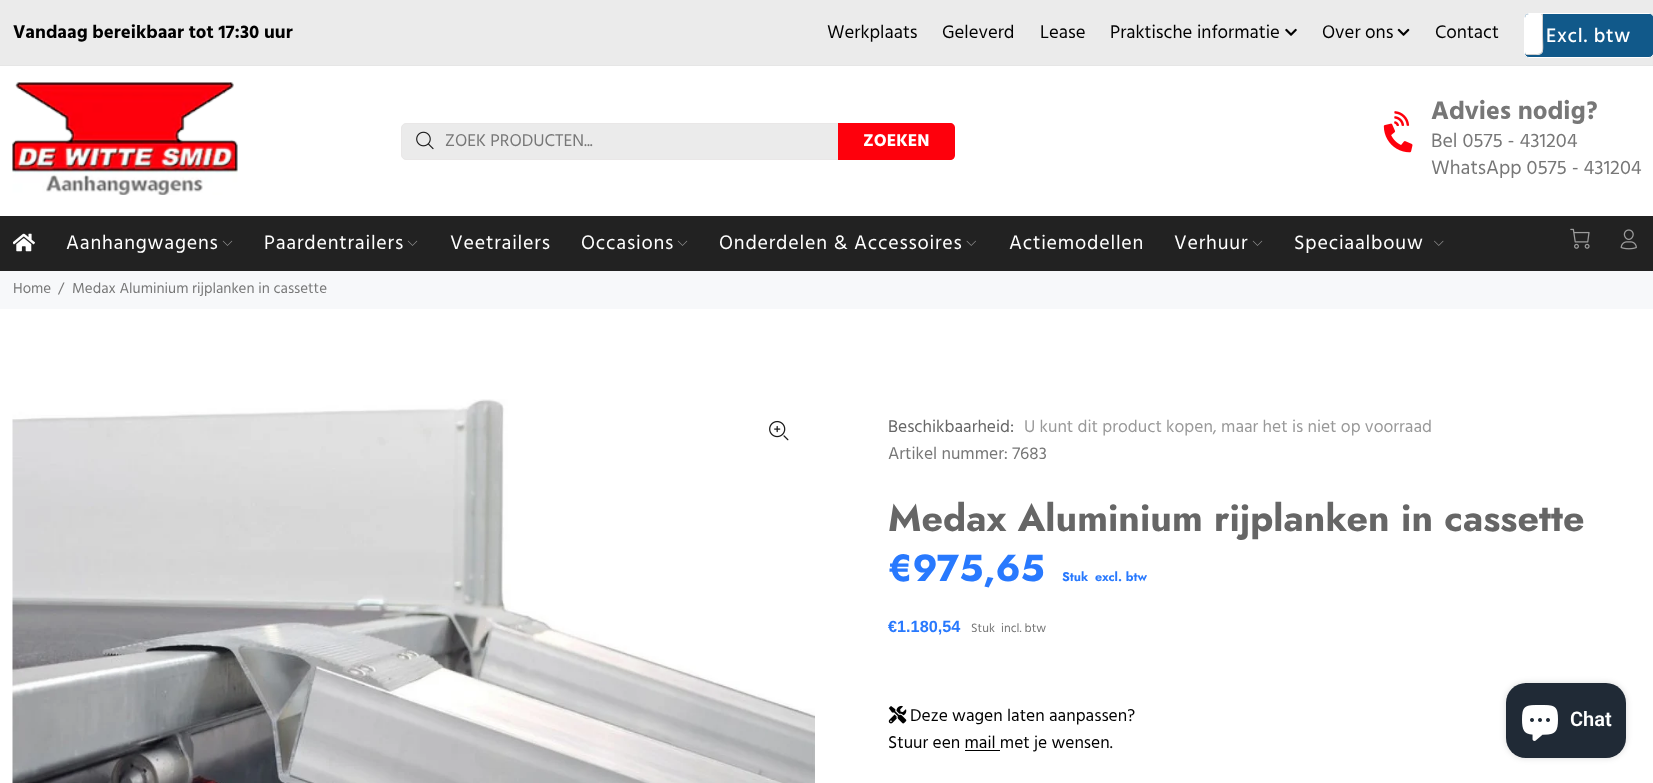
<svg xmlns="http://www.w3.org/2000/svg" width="1653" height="783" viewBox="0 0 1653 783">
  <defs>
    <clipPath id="clip1"><rect x="1525" y="14" width="128" height="42" rx="4"/></clipPath>
  </defs>
  <rect width="100%" height="100%" fill="rgb(255,255,255)"/>
  <rect x="0" y="0" width="1653" height="65" fill="rgb(235,235,235)"/>
  <rect x="0" y="65" width="1653" height="1" fill="rgb(230,230,230)"/>
  <text x="13" y="38" font-family="Hind" font-size="18.75" font-weight="bold" fill="rgb(0,0,0)">Vandaag bereikbaar tot 17:30 uur</text>
  <g font-family="Hind" font-size="18.75" fill="rgb(0,0,0)">
    <text x="827" y="38">Werkplaats</text>
    <text x="942" y="38">Geleverd</text>
    <text x="1040" y="38">Lease</text>
    <text x="1110" y="38">Praktische informatie</text>
  </g>
  <image x="1285" y="28" width="12" height="8" href="pic1.png"/>
  <text x="1322" y="38" font-family="Hind" font-size="18.75" fill="rgb(0,0,0)">Over ons</text>
  <image x="1397" y="28" width="13" height="8" href="pic2.png"/>
  <text x="1435" y="38" font-family="Hind" font-size="18.75" fill="rgb(0,0,0)">Contact</text>
  <rect x="1524.5" y="13.5" width="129" height="44" rx="4.5" fill="rgb(17,89,138)" stroke="rgb(255,255,255)"/>
  <rect x="1525" y="14" width="128" height="42" rx="4" fill="rgb(17,89,138)"/>
  <g clip-path="url(#clip1)">
    <rect x="1509" y="11" width="34" height="44" rx="5" fill="rgb(255,255,255)"/>
  </g>
  <path d="M1543 14V33C1543 56 1547 55 1526 55V54C1546 54 1542 56 1542 33V22C1542 20 1543 16 1541 14Z" fill="rgb(204,204,204)"/>
  <text x="1546" y="42" font-family="Hind" font-size="20" font-weight="500" letter-spacing="0.75" fill="rgb(255,255,255)">Excl. btw</text>
  <image x="12" y="82" width="226" height="113" href="pic3.png"/>
  <path d="M406 123.5H838.5V159.5H406C403.5 159.5 401.5 157.5 401.5 155V128C401.5 125.5 403.5 123.5 406 123.5Z" fill="rgb(235,235,235)" stroke="rgb(233,231,231)"/>
  <image x="416" y="131" width="18" height="19" href="pic4.png"/>
  <text x="445" y="146" font-family="Hind" font-size="17.5" fill="rgb(119,119,119)">ZOEK PRODUCTEN...</text>
  <path d="M838 123H950C953 123 955 125 955 128V155C955 158 953 160 950 160H838Z" fill="rgb(254,0,12)"/>
  <text x="863" y="146" font-family="Hind" font-size="17.5" font-weight="bold" fill="rgb(255,255,255)">ZOEKEN</text>
  <image x="1383" y="111" width="30" height="42" href="pic5.png"/>
  <text x="1431" y="119" font-family="Hind" font-size="26" font-weight="bold" fill="rgb(119,119,119)">Advies nodig?</text>
  <g font-family="Hind" font-size="20" fill="rgb(119,119,119)">
    <text>
      <tspan x="1431" y="147">Bel 0575 - 431204</tspan>
      <tspan x="1431" y="174">WhatsApp 0575 - 431204</tspan>
    </text>
  </g>
  <rect x="0" y="216" width="1653" height="55" fill="rgb(34,34,34)"/>
  <image x="13" y="233" width="22" height="19" href="pic6.png"/>
  <text x="66" y="249" font-family="Hind" font-size="20" letter-spacing="0.8" fill="rgb(255,255,255)">Aanhangwagens</text>
  <image x="222" y="240" width="11" height="6" href="pic7.png"/>
  <text x="264" y="249" font-family="Hind" font-size="20" letter-spacing="0.8" fill="rgb(255,255,255)">Paardentrailers</text>
  <image x="407" y="240" width="11" height="6" href="pic7.png"/>
  <g font-family="Hind" font-size="20" letter-spacing="0.8" fill="rgb(255,255,255)">
    <text x="450" y="249">Veetrailers</text>
    <text x="581" y="249">Occasions</text>
  </g>
  <image x="677" y="240" width="11" height="6" href="pic7.png"/>
  <text x="719" y="249" font-family="Hind" font-size="20" letter-spacing="0.8" fill="rgb(255,255,255)">Onderdelen &amp; Accessoires</text>
  <image x="966" y="240" width="10" height="6" href="pic8.png"/>
  <g font-family="Hind" font-size="20" letter-spacing="0.8" fill="rgb(255,255,255)">
    <text x="1009" y="249">Actiemodellen</text>
    <text x="1174" y="249">Verhuur</text>
  </g>
  <image x="1252" y="240" width="11" height="6" href="pic7.png"/>
  <text x="1294" y="249" font-family="Hind" font-size="20" letter-spacing="0.8" fill="rgb(255,255,255)">Speciaalbouw</text>
  <image x="1434" y="240" width="10" height="6" href="pic9.png"/>
  <image x="1570" y="228" width="20" height="21" href="pic10.png"/>
  <image x="1620" y="229" width="17" height="21" href="pic11.png"/>
  <rect x="0" y="271" width="1653" height="38" fill="rgb(247,248,250)"/>
  <g font-family="Hind" font-size="15" fill="rgb(119,119,119)">
    <text x="13" y="293">Home</text>
    <text x="58" y="293">/</text>
    <text x="72" y="293">Medax Aluminium rijplanken in cassette</text>
  </g>
  <image x="12" y="399" width="803" height="384" href="pic12.png"/>
  <image x="769" y="420" width="20" height="21" href="pic13.png"/>
  <text x="888" y="432" font-family="Hind" font-size="17.5" fill="rgb(102,102,102)">Beschikbaarheid:</text>
  <text x="1024" y="432" font-family="Hind" font-size="17.5" fill="rgb(153,153,153)">U kunt dit product kopen, maar het is niet op voorraad</text>
  <text x="888" y="459" font-family="Hind" font-size="17.5" fill="rgb(119,119,119)">Artikel nummer: 7683</text>
  <text x="888" y="531" font-family="Jost" font-size="37.5" font-weight="bold" letter-spacing="0.05" fill="rgb(102,102,102)">Medax Aluminium rijplanken in cassette</text>
  <text x="888" y="581" font-family="Jost" font-size="37.5" font-weight="bold" fill="rgb(40,121,254)">€975,65</text>
  <g font-family="Jost" font-size="12.5" font-weight="bold" fill="rgb(40,121,254)">
    <text x="1062" y="581">Stuk</text>
    <text x="1095" y="581">excl. btw</text>
  </g>
  <text x="888" y="632" font-family="Liberation Sans" font-size="16.25" font-weight="bold" fill="rgb(40,121,254)">€1.180,54</text>
  <g font-family="Hind" font-size="12.5" fill="rgb(119,119,119)">
    <text x="971" y="632">Stuk</text>
    <text x="1001" y="632">incl. btw</text>
  </g>
  <image x="888" y="705" width="19" height="19" href="pic14.png"/>
  <g font-family="Hind" font-size="17.5" fill="rgb(0,0,0)">
    <text x="910" y="721">Deze wagen laten aanpassen?</text>
    <text x="888" y="748">Stuur een mail met je wensen.</text>
  </g>
  <rect x="965" y="750" width="35" height="1" fill="rgb(0,0,0)"/>
  <rect x="1506" y="683" width="120" height="75" rx="20" fill="rgba(0,0,0,0.15)" filter="blur(3px)"/>
  <rect x="1506" y="683" width="120" height="75" rx="20" fill="rgb(32,42,54)"/>
  <image x="1522" y="705" width="36" height="36" href="pic15.png"/>
  <text x="1570" y="726" font-family="Roboto" font-size="20" font-weight="600" fill="rgb(255,255,255)">Chat</text>
</svg>
